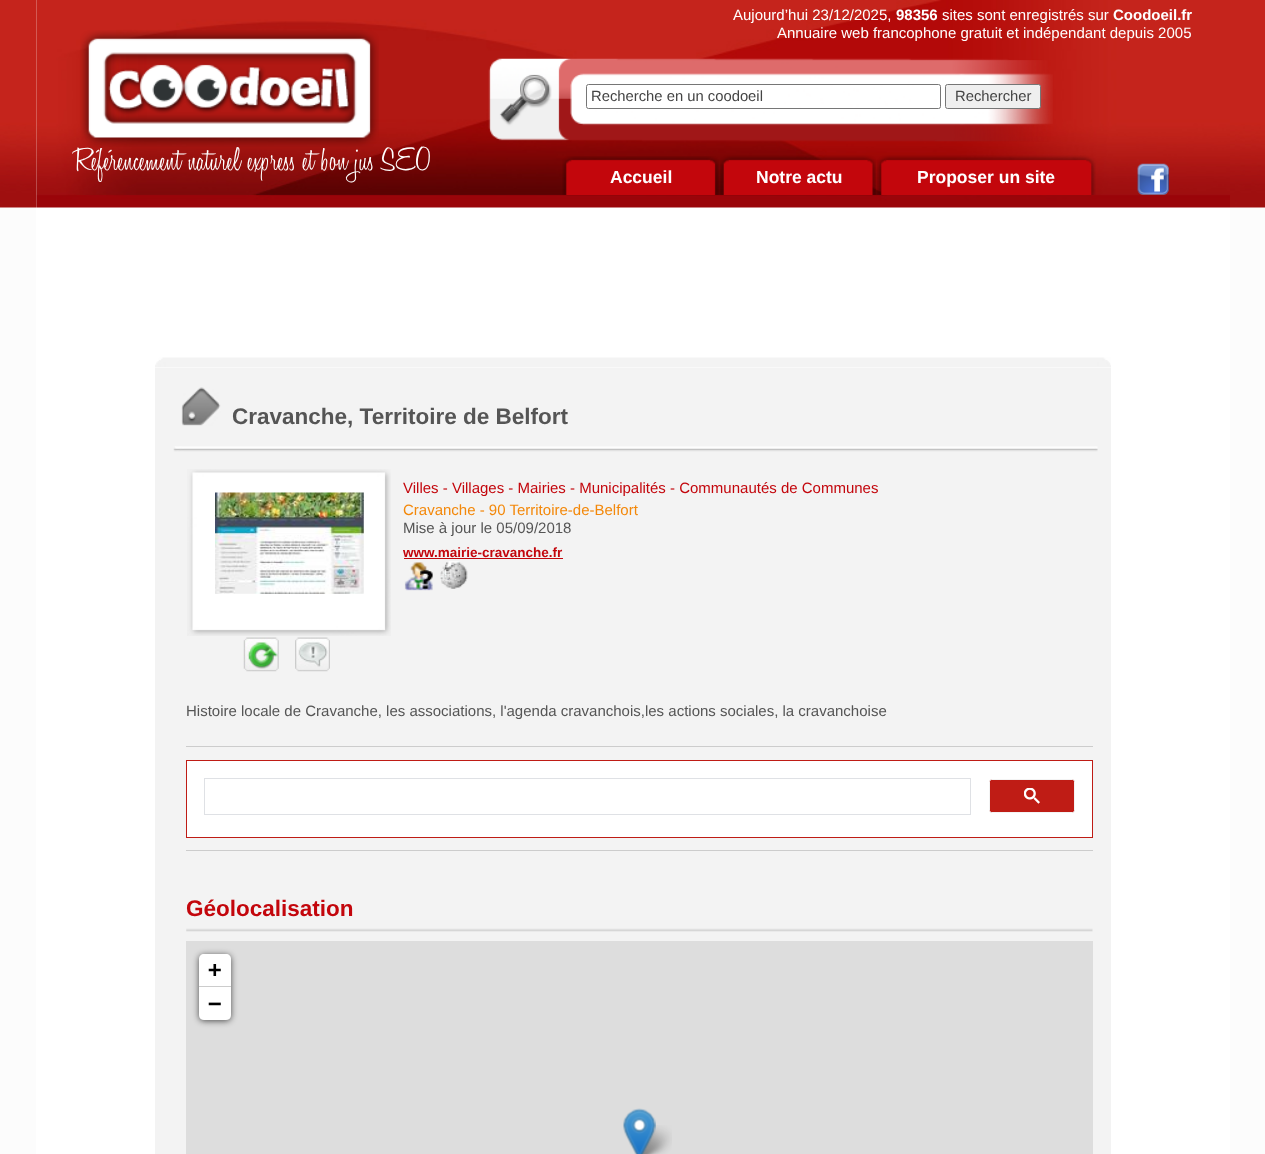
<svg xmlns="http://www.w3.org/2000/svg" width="1265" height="1154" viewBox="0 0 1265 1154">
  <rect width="100%" height="100%" fill="rgb(252,252,252)"/>
  <image x="0" y="0" width="1265" height="208" href="pic1.png"/>
  <rect x="36" y="0" width="1194" height="1154" fill="rgb(255,255,255)"/>
  <image x="36" y="0" width="1194" height="208" href="pic2.png"/>
  <text x="733" y="20" font-family="Liberation Sans" font-size="15" fill="rgb(255,255,255)">Aujourd’hui 23/12/2025,</text>
  <text x="896" y="20" font-family="Liberation Sans" font-size="15" font-weight="bold" fill="rgb(255,255,255)">98356</text>
  <text x="942" y="20" font-family="Liberation Sans" font-size="15" fill="rgb(255,255,255)">sites sont enregistrés sur</text>
  <text x="1113" y="20" font-family="Liberation Sans" font-size="15" font-weight="bold" fill="rgb(255,255,255)">Coodoeil.fr</text>
  <text x="777" y="38" font-family="Liberation Sans" font-size="15" fill="rgb(255,255,255)">Annuaire web francophone gratuit et indépendant depuis 2005</text>
  <image x="80" y="30" width="299" height="117" href="pic3.png"/>
  <image x="488" y="58" width="565" height="84" href="pic4.png"/>
  <rect x="586.5" y="84.5" width="354" height="24" rx="2" fill="none" stroke="rgb(118,118,118)"/>
  <text x="591" y="101" font-family="Liberation Sans" font-size="14.8" fill="rgb(68,68,68)">Recherche en un coodoeil</text>
  <rect x="945.5" y="84.5" width="95" height="24" rx="2" fill="rgb(239,239,239)" stroke="rgb(118,118,118)"/>
  <text x="955" y="101" font-family="Liberation Sans" font-size="14.8" fill="rgb(68,68,68)">Rechercher</text>
  <text x="73" y="170" font-family="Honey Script" font-size="33.75" font-weight="300" fill="rgb(255,255,255)">Référencement naturel express et bon jus SEO</text>
  <image x="562" y="156" width="157" height="39" href="pic5.png"/>
  <text x="610" y="183" font-family="Liberation Sans" font-size="17.5" font-weight="bold" fill="rgb(255,255,255)">Accueil</text>
  <image x="720" y="155" width="156" height="40" href="pic6.png"/>
  <text x="756" y="183" font-family="Liberation Sans" font-size="17.5" font-weight="bold" fill="rgb(255,255,255)">Notre actu</text>
  <image x="877" y="155" width="219" height="40" href="pic7.png"/>
  <text x="917" y="183" font-family="Liberation Sans" font-size="17.5" font-weight="bold" fill="rgb(255,255,255)">Proposer un site</text>
  <image x="1137" y="163" width="32" height="32" href="pic8.png"/>
  <image x="155" y="357" width="956" height="11" href="pic9.png"/>
  <rect x="155" y="368" width="956" height="786" fill="rgb(243,243,243)"/>
  <image x="181" y="387" width="40" height="39" href="pic10.png"/>
  <text x="232" y="424" font-family="Liberation Sans" font-size="22.5" font-weight="bold" fill="rgb(85,85,85)">Cravanche, Territoire de Belfort</text>
  <image x="173" y="446" width="925" height="6" href="pic11.png"/>
  <image x="187" y="469" width="204" height="167" href="pic12.png"/>
  <image x="215" y="492" width="149" height="102" href="pic13.png"/>
  <image x="243" y="637" width="36" height="35" href="pic14.png"/>
  <image x="295" y="637" width="35" height="35" href="pic15.png"/>
  <text x="403" y="493" font-family="Liberation Sans" font-size="15" fill="rgb(195,6,12)">Villes - Villages - Mairies - Municipalités - Communautés de Communes</text>
  <text x="403" y="515" font-family="Liberation Sans" font-size="15" fill="rgb(243,136,10)">Cravanche - 90 Territoire-de-Belfort</text>
  <text x="403" y="533" font-family="Liberation Sans" font-size="15" fill="rgb(85,85,85)">Mise à jour le 05/09/2018</text>
  <text x="403" y="557" font-family="Liberation Sans" font-size="13.5" font-weight="bold" fill="rgb(195,6,12)">www.mairie-cravanche.fr</text>
  <rect x="404" y="558" width="159" height="1" fill="rgb(195,6,12)"/>
  <image x="404" y="562" width="29" height="29" href="pic16.png"/>
  <image x="440" y="561" width="28" height="28" href="pic17.png"/>
  <text x="186" y="716" font-family="Liberation Sans" font-size="15" fill="rgb(85,85,85)">Histoire locale de Cravanche, les associations, l'agenda cravanchois,les actions sociales, la cravanchoise</text>
  <rect x="186" y="746" width="907" height="1" fill="rgb(204,204,204)"/>
  <rect x="186" y="850" width="907" height="1" fill="rgb(204,204,204)"/>
  <rect x="186.5" y="760.5" width="906" height="77" fill="rgb(255,255,255)" stroke="rgb(191,28,21)"/>
  <rect x="204.5" y="778.5" width="766" height="36" fill="none" stroke="rgb(223,225,229)"/>
  <rect x="989.5" y="779.5" width="85" height="33" rx="2" fill="rgb(191,28,21)" stroke="rgb(243,243,243)"/>
  <image x="1024" y="788" width="16" height="16" href="pic18.png"/>
  <text x="186" y="916" font-family="Liberation Sans" font-size="22.5" font-weight="bold" fill="rgb(195,6,12)">Géolocalisation</text>
  <image x="186" y="928" width="907" height="4" href="pic19.png"/>
  <rect x="186" y="941" width="907" height="213" fill="rgb(221,221,221)"/>
  <rect x="199" y="955" width="32" height="66" rx="5" fill="rgba(0,0,0,0.65)" filter="blur(3px)"/>
  <path d="M204 954H226C229 954 231 956 231 959V988H199V959C199 956 201 954 204 954Z" fill="rgb(255,255,255)"/>
  <rect x="199" y="986" width="32" height="1" fill="rgb(204,204,204)"/>
  <text x="208" y="977" font-family="DejaVu Sans Mono" font-size="22.5" font-weight="bold" fill="rgb(0,0,0)">+</text>
  <path d="M199 988H231V1015C231 1018 229 1020 226 1020H204C201 1020 199 1018 199 1015Z" fill="rgb(255,255,255)"/>
  <text x="208" y="1011" font-family="DejaVu Sans Mono" font-size="22.5" font-weight="bold" fill="rgb(0,0,0)">−</text>
  <image x="635" y="1125" width="37" height="29" href="pic21.png"/>
  <image x="623" y="1108" width="33" height="46" href="pic20.png"/>
</svg>
